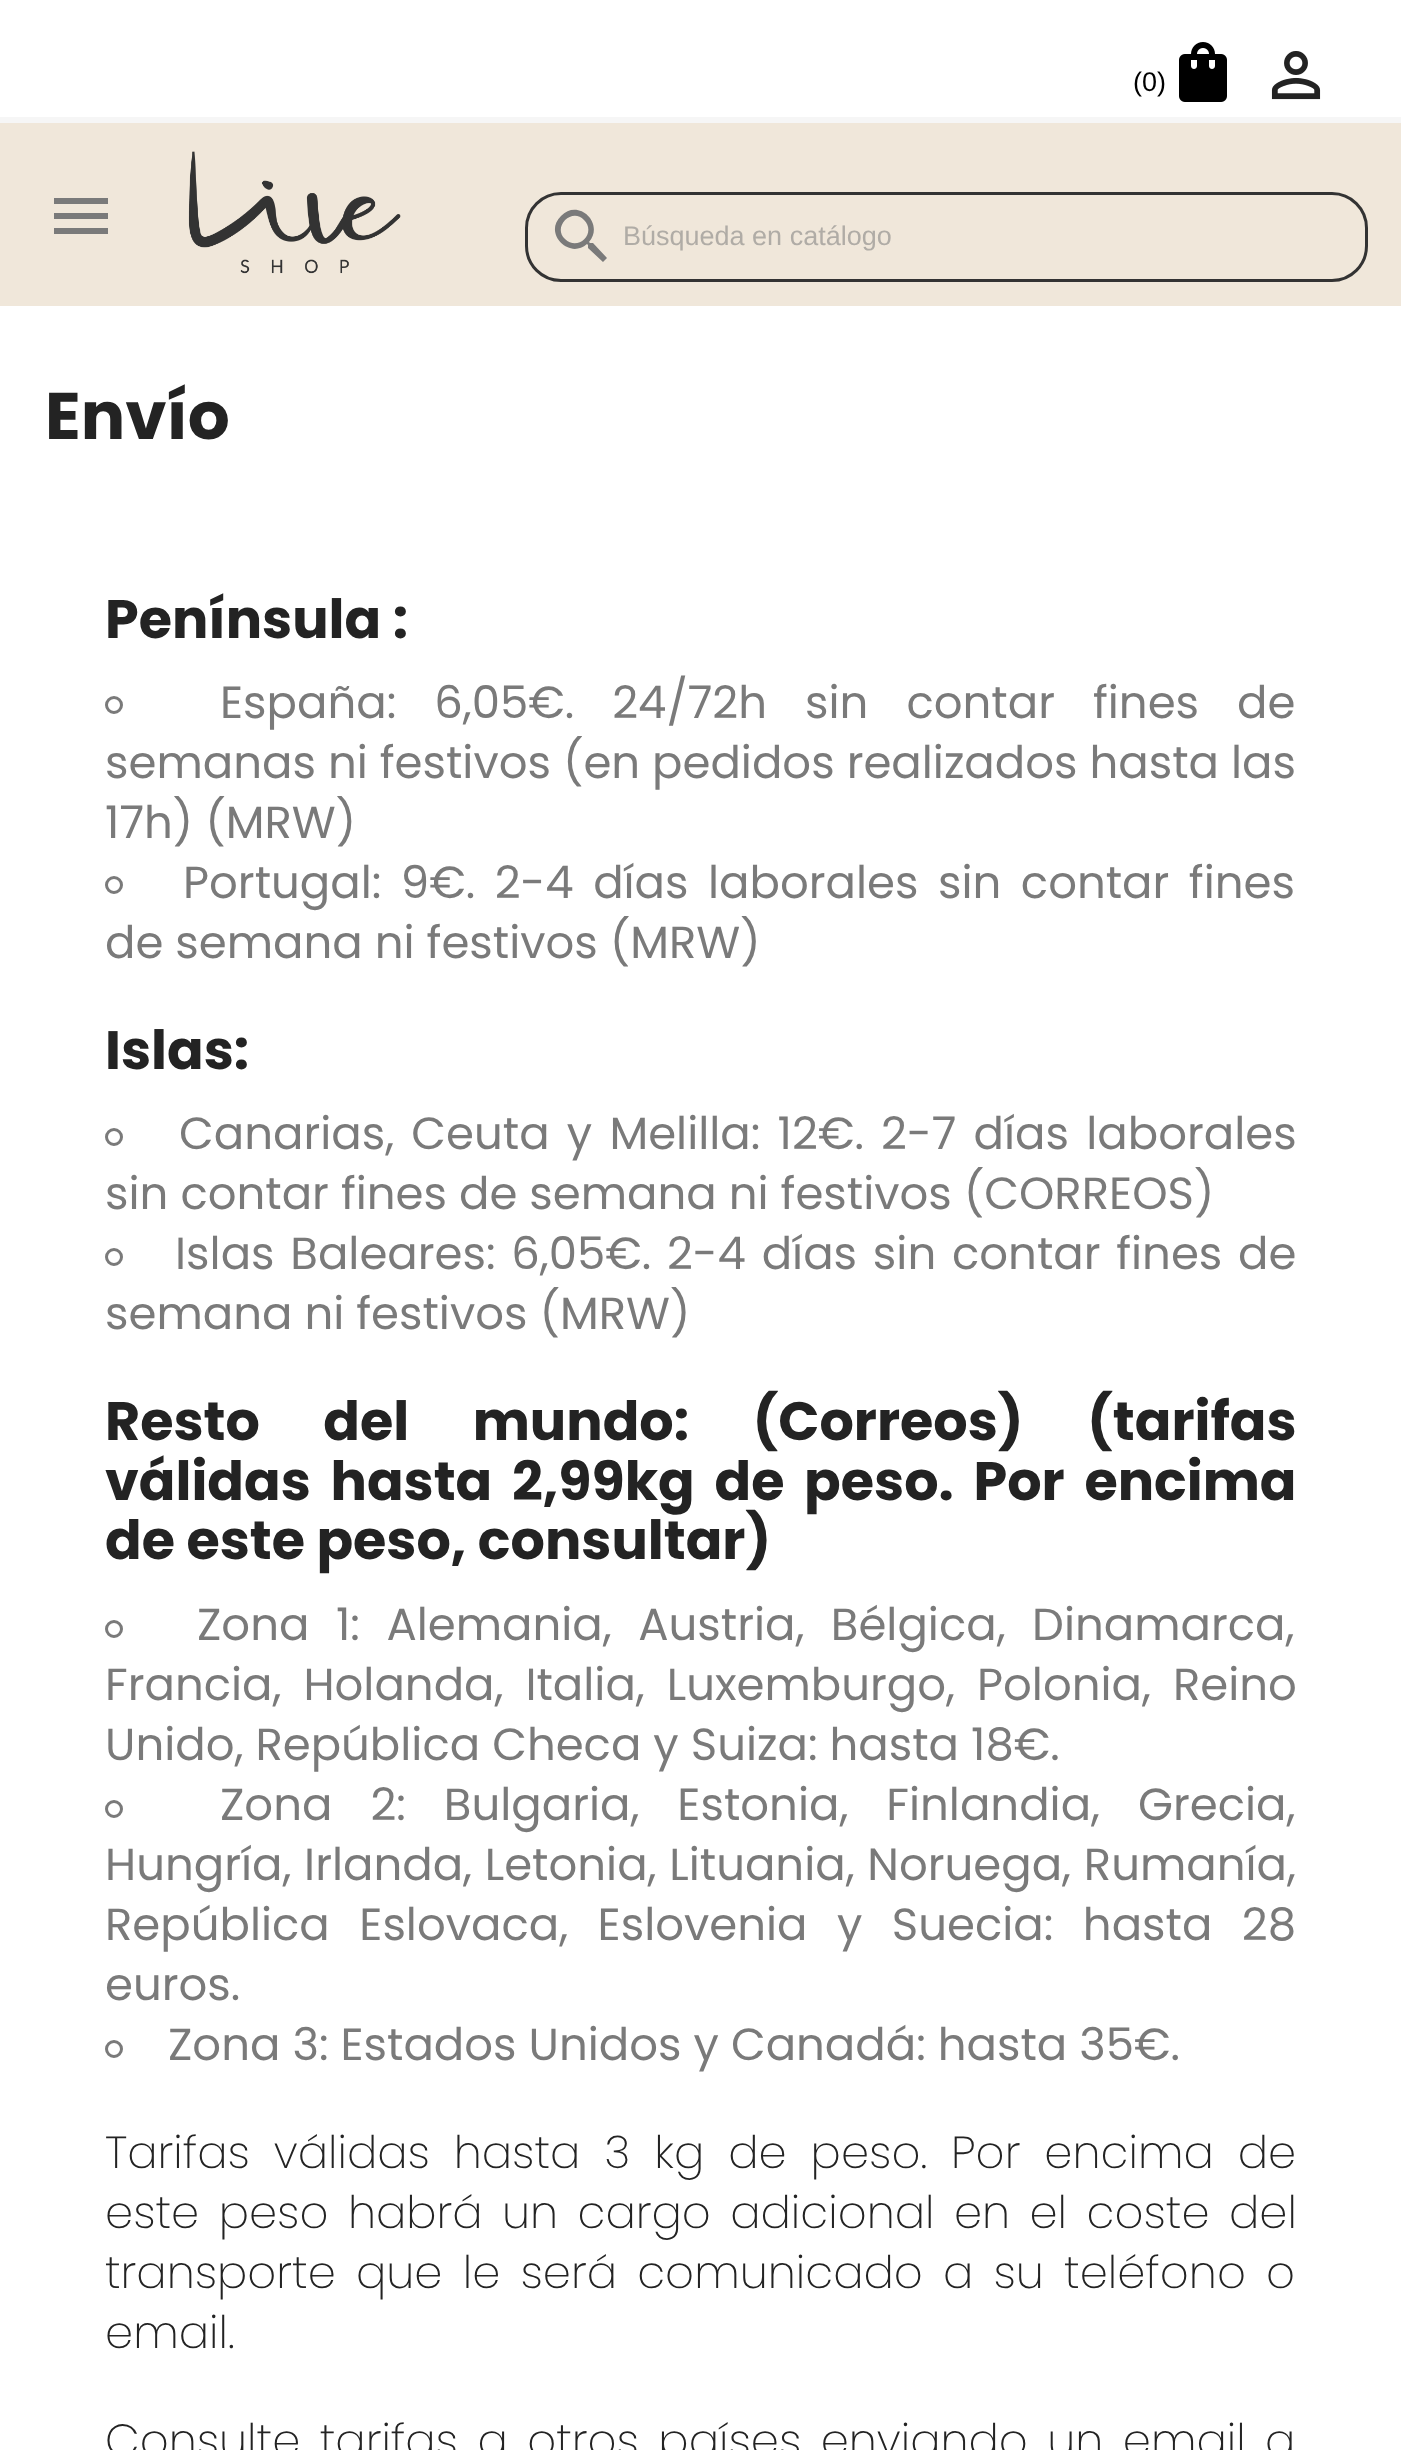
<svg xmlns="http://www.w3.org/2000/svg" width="1401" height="2450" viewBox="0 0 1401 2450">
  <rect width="100%" height="100%" fill="rgb(255,255,255)"/>
  <rect x="0" y="117" width="1401" height="6" fill="rgb(246,246,246)"/>
  <text x="1133" y="91" font-family="Liberation Sans" font-size="27" fill="rgb(0,0,0)">(0)</text>
  <image x="1179" y="42" width="48" height="60" href="pic1.png"/>
  <image x="1271" y="51" width="50" height="49" href="pic2.png"/>
  <rect x="0" y="123" width="1401" height="183" fill="rgb(240,231,218)"/>
  <path d="M54 198H108V204H54ZM54 219V213H108V219ZM54 234V228H108V234Z" fill="rgb(122,122,122)"/>
  <image x="188" y="151" width="213" height="123" href="pic3.png"/>
  <rect x="526.5" y="193.5" width="840" height="87" rx="34.5" fill="none" stroke="rgb(51,51,51)" stroke-width="3"/>
  <path d="M565 239C578 252 597 233 584 220C572 207 552 227 565 239ZM593 243L607 258L603 262L588 248V245L587 244C569 260 543 233 561 216C578 198 605 223 589 242L590 243Z" fill="rgb(122,122,122)"/>
  <text x="623" y="245" font-family="Liberation Sans" font-size="27" fill="rgb(176,172,166)">Búsqueda en catálogo</text>
  <text x="45" y="439" font-family="Poppins" font-size="66" font-weight="bold" fill="rgb(35,35,35)">Envío</text>
  <text x="105" y="638" font-family="Poppins" font-size="54" font-weight="bold" fill="rgb(35,35,35)">Península :</text>
  <circle cx="114" cy="705" r="7.5" fill="none" stroke="rgb(122,122,122)" stroke-width="3"/>
  <g font-family="Poppins" font-size="45" fill="rgb(122,122,122)">
    <text x="220" y="718" word-spacing="26">España: 6,05€. 24/72h sin contar fines de</text>
    <text>
      <tspan x="105" y="778">semanas ni festivos (en pedidos realizados hasta las</tspan>
      <tspan x="105" y="838">17h) (MRW)</tspan>
    </text>
  </g>
  <circle cx="114" cy="885" r="7.5" fill="none" stroke="rgb(122,122,122)" stroke-width="3"/>
  <g font-family="Poppins" font-size="45" fill="rgb(122,122,122)">
    <text x="183" y="898" word-spacing="7.5">Portugal: 9€. 2-4 días laborales sin contar fines</text>
    <text x="105" y="958">de semana ni festivos (MRW)</text>
  </g>
  <text x="105" y="1069" font-family="Poppins" font-size="54" font-weight="bold" fill="rgb(35,35,35)">Islas:</text>
  <circle cx="114" cy="1137" r="7.5" fill="none" stroke="rgb(122,122,122)" stroke-width="3"/>
  <g font-family="Poppins" font-size="45" fill="rgb(122,122,122)">
    <text x="179" y="1149" word-spacing="5.25">Canarias, Ceuta y Melilla: 12€. 2-7 días laborales</text>
    <text x="105" y="1209">sin contar fines de semana ni festivos (CORREOS)</text>
  </g>
  <circle cx="114" cy="1257" r="7.5" fill="none" stroke="rgb(122,122,122)" stroke-width="3"/>
  <g font-family="Poppins" font-size="45" fill="rgb(122,122,122)">
    <text x="175" y="1269" word-spacing="3.75">Islas Baleares: 6,05€. 2-4 días sin contar fines de</text>
    <text x="105" y="1329">semana ni festivos (MRW)</text>
  </g>
  <g font-family="Poppins" font-size="54" font-weight="bold" fill="rgb(35,35,35)">
    <text>
      <tspan x="105" y="1440" word-spacing="52">Resto del mundo: (Correos) (tarifas</tspan>
      <tspan x="105" y="1500" word-spacing="8.25">válidas hasta 2,99kg de peso. Por encima</tspan>
      <tspan x="105" y="1559">de este peso, consultar)</tspan>
    </text>
  </g>
  <circle cx="114" cy="1629" r="7.5" fill="none" stroke="rgb(122,122,122)" stroke-width="3"/>
  <g font-family="Poppins" font-size="45" fill="rgb(122,122,122)">
    <text x="197" y="1640" word-spacing="14.5">Zona 1: Alemania, Austria, Bélgica, Dinamarca,</text>
    <text>
      <tspan x="105" y="1700" word-spacing="10">Francia, Holanda, Italia, Luxemburgo, Polonia, Reino</tspan>
      <tspan x="105" y="1760">Unido, República Checa y Suiza: hasta 18€.</tspan>
    </text>
  </g>
  <circle cx="114" cy="1809" r="7.5" fill="none" stroke="rgb(122,122,122)" stroke-width="3"/>
  <g font-family="Poppins" font-size="45" fill="rgb(122,122,122)">
    <text x="220" y="1820" word-spacing="26">Zona 2: Bulgaria, Estonia, Finlandia, Grecia,</text>
    <text>
      <tspan x="105" y="1880" word-spacing="0.75">Hungría, Irlanda, Letonia, Lituania, Noruega, Rumanía,</tspan>
      <tspan x="105" y="1940" word-spacing="17.5">República Eslovaca, Eslovenia y Suecia: hasta 28</tspan>
      <tspan x="105" y="2000">euros.</tspan>
    </text>
  </g>
  <circle cx="114" cy="2049" r="7.5" fill="none" stroke="rgb(122,122,122)" stroke-width="3"/>
  <text x="168" y="2060" font-family="Poppins" font-size="45" fill="rgb(122,122,122)">Zona 3: Estados Unidos y Canadá: hasta 35€.</text>
  <g font-family="Poppins" font-size="45" font-weight="200" fill="rgb(35,35,35)">
    <text>
      <tspan x="105" y="2168" word-spacing="11.25">Tarifas válidas hasta 3 kg de peso. Por encima de</tspan>
      <tspan x="105" y="2228" word-spacing="6.75">este peso habrá un cargo adicional en el coste del</tspan>
      <tspan x="105" y="2288" word-spacing="7.5">transporte que le será comunicado a su teléfono o</tspan>
      <tspan x="105" y="2348">email.</tspan>
    </text>
    <text x="105" y="2456" word-spacing="6.75">Consulte tarifas a otros países enviando un email a</text>
  </g>
</svg>
